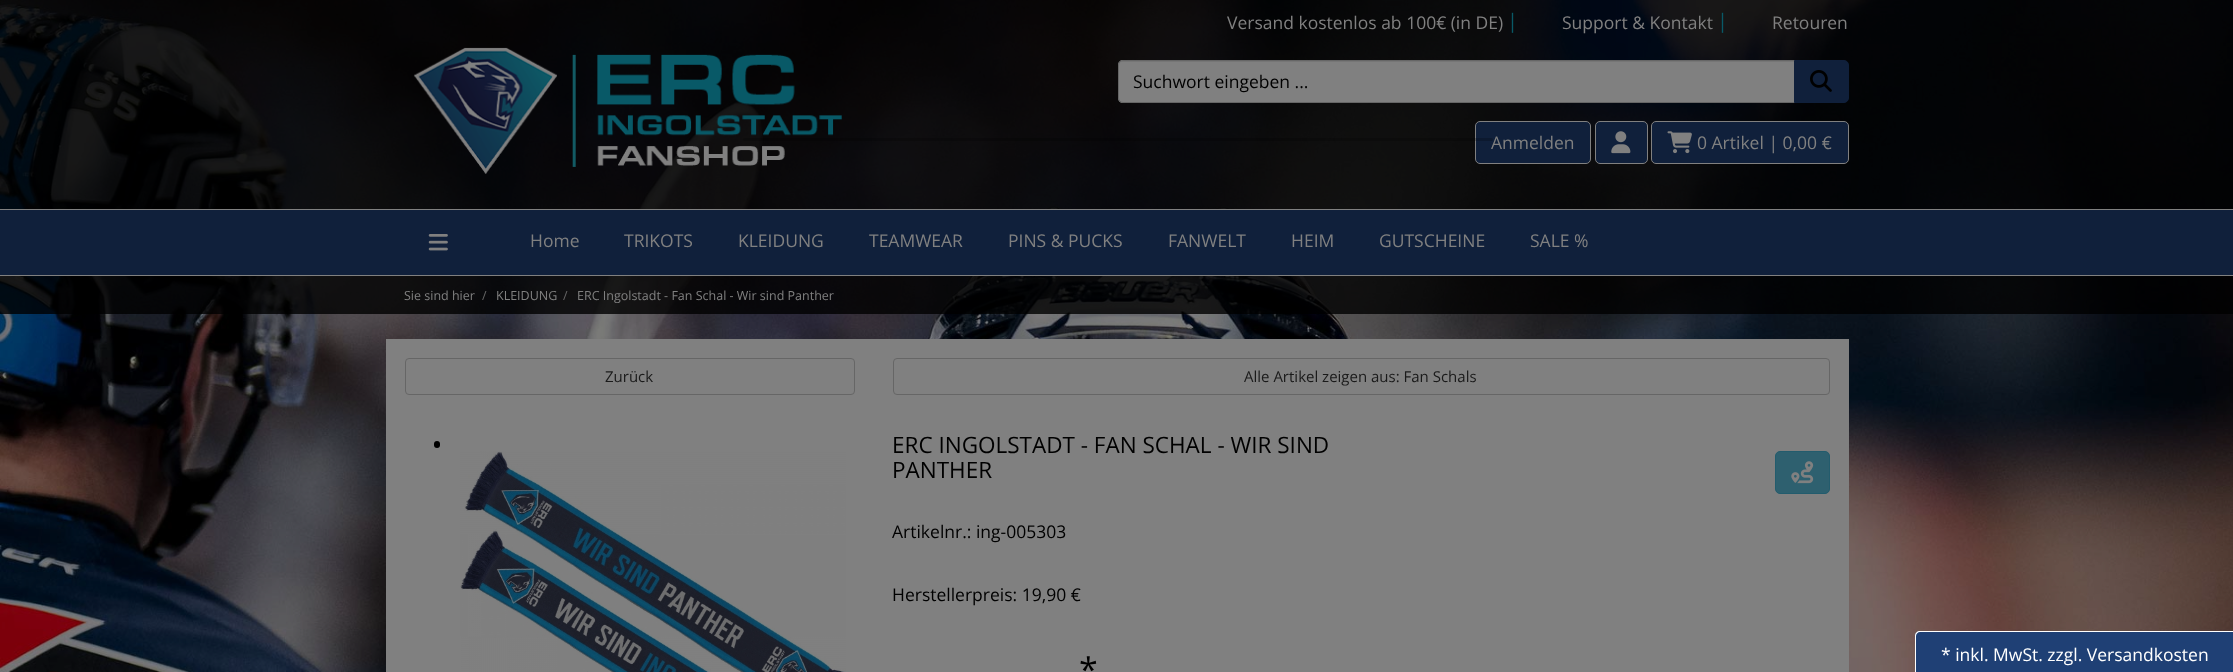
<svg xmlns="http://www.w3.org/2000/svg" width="2233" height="672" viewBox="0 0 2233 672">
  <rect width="100%" height="100%" fill="rgb(255,255,255)"/>
  <image x="0" y="0" width="2233" height="672" href="pic1.png"/>
  <rect x="0" y="0" width="2233" height="314" fill="rgba(0,0,0,0.8)"/>
  <text x="1227" y="29" font-family="Open Sans" font-size="17.5" fill="rgb(128,128,128)">Versand kostenlos ab 100€ (in DE)</text>
  <text x="1507" y="28" font-family="Open Sans" font-size="20" fill="rgb(9,89,103)">|</text>
  <text x="1562" y="29" font-family="Open Sans" font-size="17.5" fill="rgb(128,128,128)">Support &amp; Kontakt</text>
  <text x="1717" y="28" font-family="Open Sans" font-size="20" fill="rgb(9,89,103)">|</text>
  <text x="1772" y="29" font-family="Open Sans" font-size="17.5" fill="rgb(128,128,128)">Retouren</text>
  <image x="413" y="47" width="429" height="127" href="pic2.png"/>
  <path d="M1123 60H1795V103H1123C1120 103 1118 101 1118 98V65C1118 62 1120 60 1123 60Z" fill="rgb(128,128,128)"/>
  <path d="M1122 62H1794V61H1123C1121 61 1119 63 1119 65V66C1119 64 1120 62 1122 62Z" fill="rgb(118,118,118)"/>
  <path d="M1123 60.5H1794.5V102.5H1123C1120.5 102.5 1118.5 100.5 1118.5 98V65C1118.5 62.5 1120.5 60.5 1123 60.5Z" fill="none" stroke="rgb(102,102,102)"/>
  <text x="1133" y="88" font-family="Open Sans" font-size="17.5" fill="rgb(0,0,0)">Suchwort eingeben ...</text>
  <path d="M1794.5 60.5H1844C1846.5 60.5 1848.5 62.5 1848.5 65V98C1848.5 100.5 1846.5 102.5 1844 102.5H1794.5Z" fill="rgb(16,32,59)" stroke="rgb(16,32,59)"/>
  <image x="1810" y="70" width="22" height="22" href="pic3.png"/>
  <rect x="1475.5" y="121.5" width="115" height="42" rx="4.5" fill="rgb(16,32,59)" stroke="rgb(128,128,128)"/>
  <text x="1491" y="149" font-family="Open Sans" font-size="17.5" fill="rgb(128,128,128)">Anmelden</text>
  <rect x="1595.5" y="121.5" width="52" height="42" rx="4.5" fill="rgb(16,32,59)" stroke="rgb(128,128,128)"/>
  <image x="1611" y="131" width="20" height="23" href="pic4.png"/>
  <rect x="1651.5" y="121.5" width="197" height="42" rx="4.5" fill="rgb(16,32,59)" stroke="rgb(128,128,128)"/>
  <image x="1667" y="131" width="25" height="23" href="pic5.png"/>
  <text x="1697" y="149" font-family="Open Sans" font-size="17.5" fill="rgb(128,128,128)">0 Artikel | 0,00 €</text>
  <rect x="0" y="210" width="2233" height="65" fill="rgb(16,32,59)"/>
  <rect x="0" y="209" width="2233" height="1" fill="rgb(128,128,128)"/>
  <rect x="0" y="275" width="2233" height="1" fill="rgb(128,128,128)"/>
  <image x="428" y="234" width="20" height="17" href="pic6.png"/>
  <g font-family="Open Sans" font-size="17.5" fill="rgb(128,128,128)">
    <text x="530" y="247">Home</text>
    <text x="624" y="247">TRIKOTS</text>
    <text x="738" y="247">KLEIDUNG</text>
    <text x="869" y="247">TEAMWEAR</text>
    <text x="1008" y="247">PINS &amp; PUCKS</text>
    <text x="1168" y="247">FANWELT</text>
    <text x="1291" y="247">HEIM</text>
    <text x="1379" y="247">GUTSCHEINE</text>
    <text x="1530" y="247">SALE %</text>
  </g>
  <text x="404" y="300" font-family="Open Sans" font-size="12.5" fill="rgb(128,128,128)">Sie sind hier</text>
  <text x="482" y="300" font-family="Open Sans" font-size="12.5" fill="rgb(102,102,102)">/</text>
  <text x="496" y="300" font-family="Open Sans" font-size="12.5" fill="rgb(128,128,128)">KLEIDUNG</text>
  <text x="563" y="300" font-family="Open Sans" font-size="12.5" fill="rgb(102,102,102)">/</text>
  <text x="577" y="300" font-family="Open Sans" font-size="12.5" fill="rgb(128,128,128)">ERC Ingolstadt - Fan Schal - Wir sind Panther</text>
  <rect x="743" y="138" width="750" height="3" rx="1.5" fill="rgba(0,0,0,0.2)"/>
  <rect x="386" y="339" width="1463" height="333" fill="rgb(128,128,128)"/>
  <rect x="405.5" y="358.5" width="449" height="36" rx="3.5" fill="none" stroke="rgb(102,102,102)"/>
  <text x="605" y="382" font-family="Open Sans" font-size="15" fill="rgb(26,26,26)">Zurück</text>
  <rect x="893.5" y="358.5" width="936" height="36" rx="3.5" fill="none" stroke="rgb(102,102,102)"/>
  <text x="1244" y="382" font-family="Open Sans" font-size="15" fill="rgb(26,26,26)">Alle Artikel zeigen aus: Fan Schals</text>
  <rect x="434" y="441" width="6" height="7" rx="3" fill="rgb(0,0,0)"/>
  <image x="460" y="451" width="386" height="221" href="pic7.png"/>
  <g font-family="Open Sans" font-size="22.5" fill="rgb(0,0,0)">
    <text>
      <tspan x="892" y="453">ERC INGOLSTADT - FAN SCHAL - WIR SIND</tspan>
      <tspan x="892" y="478">PANTHER</tspan>
    </text>
  </g>
  <text x="892" y="538" font-family="Open Sans" font-size="17.5" fill="rgb(0,0,0)">Artikelnr.: ing-005303</text>
  <rect x="1775.5" y="451.5" width="54" height="42" rx="4.5" fill="rgb(46,96,111)" stroke="rgb(35,92,109)"/>
  <image x="1791" y="461" width="23" height="23" href="pic8.png"/>
  <text x="892" y="601" font-family="Open Sans" font-size="17.5" fill="rgb(0,0,0)">Herstellerpreis: 19,90 €</text>
  <text x="1079" y="682" font-family="Open Sans" font-size="34" fill="rgb(0,0,0)">*</text>
  <path d="M1920 631H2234V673H1915V636C1915 633 1917 631 1920 631Z" fill="rgb(31,64,117)"/>
  <path d="M1920 631H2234V672H1915V636C1915 633 1917 631 1920 631ZM1920 632H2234V672H1916V636C1916 634 1918 632 1920 632Z" fill="rgb(255,255,255)" fill-rule="evenodd"/>
  <text x="1941" y="661" font-family="Open Sans" font-size="17.5" fill="rgb(255,255,255)">* inkl. MwSt. zzgl. Versandkosten</text>
</svg>
